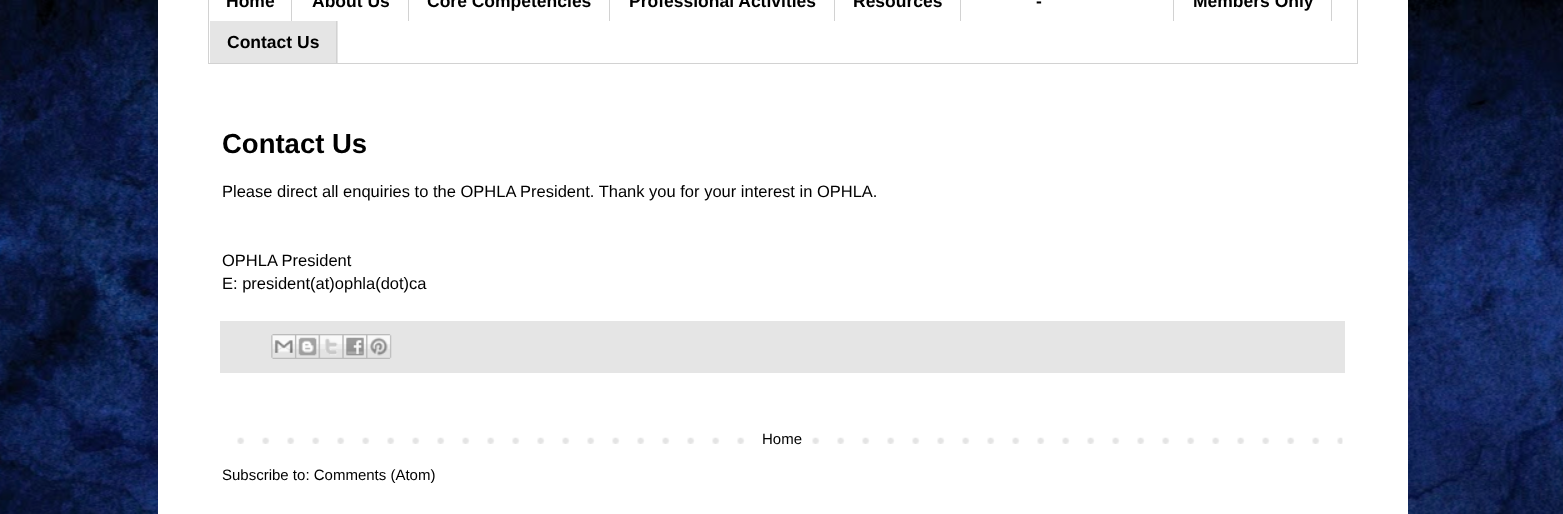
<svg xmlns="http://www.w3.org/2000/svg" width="1563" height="514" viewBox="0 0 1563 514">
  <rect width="100%" height="100%" fill="rgb(255,255,255)"/>
  <image x="0" y="0" width="1563" height="514" href="pic1.png"/>
  <rect x="158" y="0" width="1250" height="514" fill="rgb(255,255,255)"/>
  <rect x="208.5" y="-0.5" width="1149" height="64" fill="none" stroke="rgb(210,210,210)"/>
  <rect x="291" y="0" width="1" height="21" fill="rgb(210,210,210)"/>
  <text x="226" y="7" font-family="Liberation Sans" font-size="17.5" font-weight="bold" fill="rgb(0,0,0)">Home</text>
  <rect x="408" y="0" width="1" height="21" fill="rgb(210,210,210)"/>
  <text x="312" y="7" font-family="Liberation Sans" font-size="17.5" font-weight="bold" fill="rgb(0,0,0)">About Us</text>
  <rect x="609" y="0" width="1" height="21" fill="rgb(210,210,210)"/>
  <text x="427" y="7" font-family="Liberation Sans" font-size="17.5" font-weight="bold" fill="rgb(0,0,0)">Core Competencies</text>
  <rect x="834" y="0" width="1" height="21" fill="rgb(210,210,210)"/>
  <text x="629" y="7" font-family="Liberation Sans" font-size="17.5" font-weight="bold" fill="rgb(0,0,0)">Professional Activities</text>
  <rect x="960" y="0" width="1" height="21" fill="rgb(210,210,210)"/>
  <text x="853" y="7" font-family="Liberation Sans" font-size="17.5" font-weight="bold" fill="rgb(0,0,0)">Resources</text>
  <rect x="1173" y="0" width="1" height="21" fill="rgb(210,210,210)"/>
  <text x="1036" y="7" font-family="Liberation Sans" font-size="17.5" font-weight="bold" fill="rgb(0,0,0)">-</text>
  <rect x="1331" y="0" width="1" height="21" fill="rgb(210,210,210)"/>
  <text x="1193" y="7" font-family="Liberation Sans" font-size="17.5" font-weight="bold" fill="rgb(0,0,0)">Members Only</text>
  <rect x="210" y="21" width="128" height="42" fill="rgb(229,229,229)"/>
  <rect x="336" y="21" width="1" height="42" fill="rgb(210,210,210)"/>
  <text x="227" y="48" font-family="Liberation Sans" font-size="17.5" font-weight="bold" fill="rgb(0,0,0)">Contact Us</text>
  <text x="222" y="153" font-family="Liberation Sans" font-size="27.5" font-weight="bold" fill="rgb(0,0,0)">Contact Us</text>
  <g font-family="Liberation Sans" font-size="16.5" fill="rgb(0,0,0)">
    <text x="222" y="197">Please direct all enquiries to the OPHLA President. Thank you for your interest in OPHLA.</text>
    <text>
      <tspan x="222" y="266">OPHLA President</tspan>
      <tspan x="222" y="289">E: president(at)ophla(dot)ca</tspan>
    </text>
  </g>
  <rect x="220" y="321" width="1125" height="52" fill="rgb(229,229,229)"/>
  <image x="271" y="334" width="24" height="25" href="pic2.png"/>
  <image x="295" y="334" width="24" height="25" href="pic3.png"/>
  <image x="318" y="334" width="25" height="25" href="pic4.png"/>
  <image x="342" y="334" width="25" height="25" href="pic5.png"/>
  <image x="366" y="334" width="26" height="25" href="pic6.png"/>
  <image x="237" y="437" width="1106" height="7" href="pic7.png"/>
  <rect x="762" y="437" width="33" height="7" fill="rgb(255,255,255)"/>
  <g font-family="Liberation Sans" font-size="15" fill="rgb(0,0,0)">
    <text x="762" y="444">Home</text>
    <text x="222" y="480">Subscribe to: Comments (Atom)</text>
  </g>
</svg>
